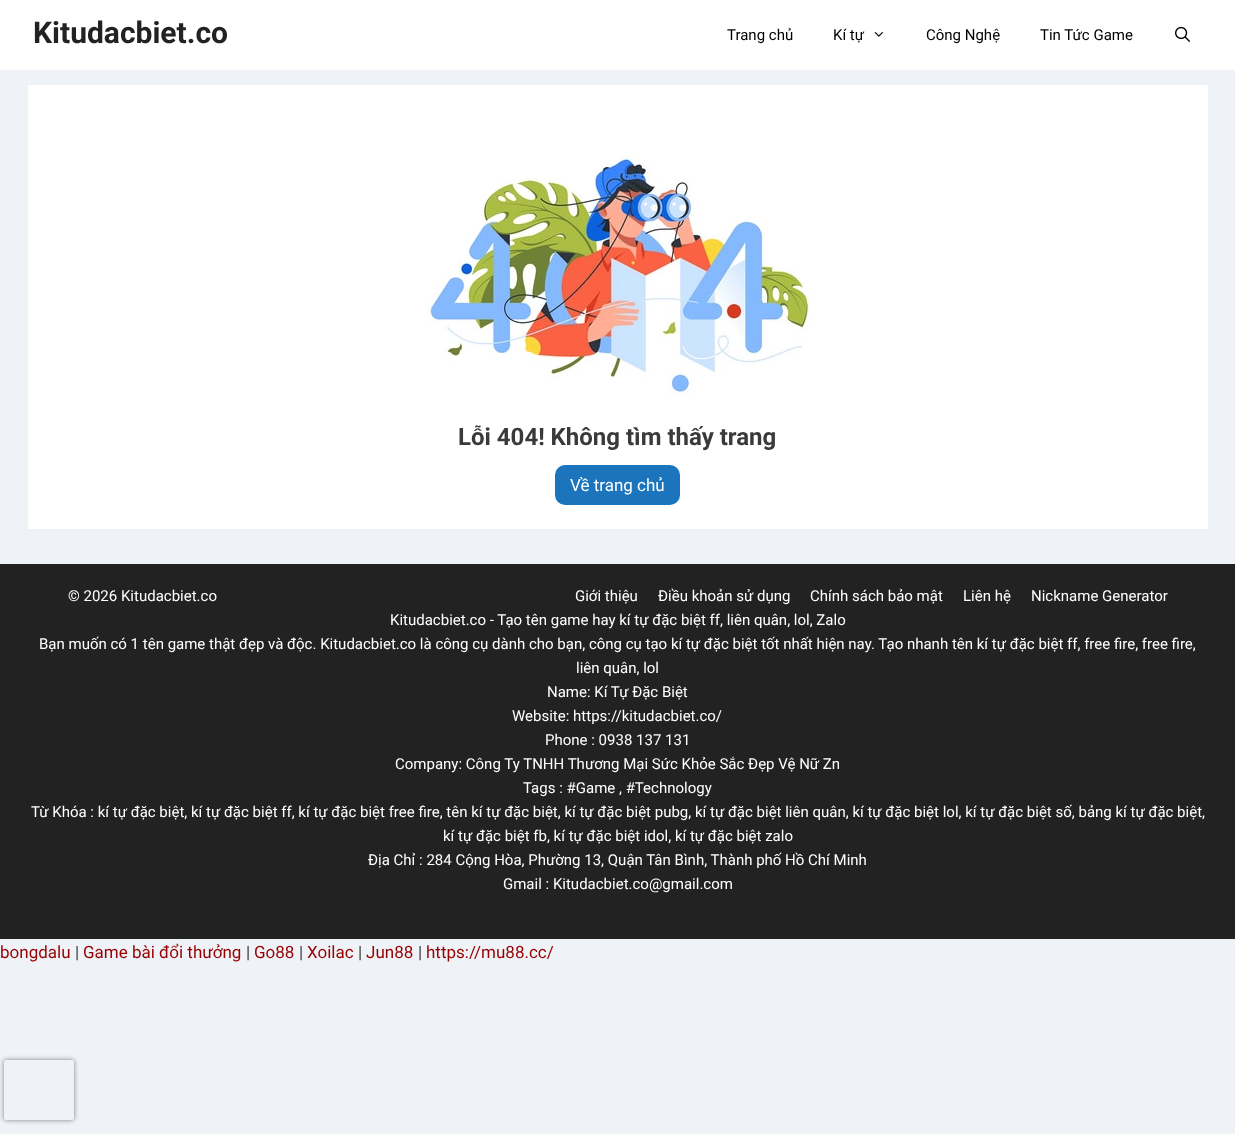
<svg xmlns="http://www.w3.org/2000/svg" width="1235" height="1134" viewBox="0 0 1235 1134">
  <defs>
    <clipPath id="clip1"><path d="M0 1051H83V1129H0ZM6 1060H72C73 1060 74 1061 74 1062V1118C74 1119 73 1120 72 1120H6C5 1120 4 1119 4 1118V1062C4 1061 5 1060 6 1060Z" clip-rule="evenodd"/></clipPath>
  </defs>
  <rect width="100%" height="100%" fill="rgb(239,242,247)"/>
  <rect x="0" y="0" width="1235" height="70" fill="rgb(255,255,255)"/>
  <text x="33" y="43" font-family="Roboto" font-size="30" font-weight="bold" fill="rgb(34,34,34)">Kitudacbiet.co</text>
  <g font-family="Roboto" font-size="15" fill="rgb(0,0,0)">
    <text x="727" y="40">Trang chủ</text>
    <text x="833" y="40">Kí tự</text>
  </g>
  <image x="874" y="32" width="9" height="5" href="pic1.png"/>
  <g font-family="Roboto" font-size="15" fill="rgb(0,0,0)">
    <text x="926" y="40">Công Nghệ</text>
    <text x="1040" y="40">Tin Tức Game</text>
  </g>
  <image x="1175" y="26" width="15" height="16" href="pic2.png"/>
  <rect x="28" y="85" width="1180" height="444" fill="rgb(255,255,255)"/>
  <image x="426" y="155" width="384" height="240" href="pic3.png"/>
  <text x="458" y="445" font-family="Roboto" font-size="24" font-weight="bold" fill="rgb(58,58,58)">Lỗi 404! Không tìm thấy trang</text>
  <rect x="555" y="465" width="125" height="40" rx="10" fill="rgb(28,117,188)"/>
  <text x="570" y="491" font-family="Roboto" font-size="17" fill="rgb(255,255,255)">Về trang chủ</text>
  <rect x="0" y="564" width="1235" height="375" fill="rgb(34,34,34)"/>
  <g font-family="Roboto" font-size="15" fill="rgb(255,255,255)">
    <text x="68" y="601">© 2026 Kitudacbiet.co</text>
    <text x="575" y="601">Giới thiệu</text>
    <text x="658" y="601">Điều khoản sử dụng</text>
    <text x="810" y="601">Chính sách bảo mật</text>
    <text x="963" y="601">Liên hệ</text>
    <text x="1031" y="601">Nickname Generator</text>
    <text x="390" y="625">Kitudacbiet.co - Tạo tên game hay kí tự đặc biệt ff, liên quân, lol, Zalo</text>
    <text x="39" y="649">Bạn muốn có 1 tên game thật đẹp và độc. Kitudacbiet.co là công cụ dành cho bạn, công cụ tạo kí tự đặc biệt tốt nhất hiện nay. Tạo nhanh tên kí tự đặc biệt ff, free fire, free fire,</text>
    <text x="576" y="673">liên quân, lol</text>
    <text x="547" y="697">Name: Kí Tự Đặc Biệt</text>
    <text x="512" y="721">Website: https://kitudacbiet.co/</text>
    <text x="545" y="745">Phone : 0938 137 131</text>
    <text x="395" y="769">Company: Công Ty TNHH Thương Mại Sức Khỏe Sắc Đẹp Vệ Nữ Zn</text>
    <text x="523" y="793">Tags : #Game , #Technology</text>
    <text x="31" y="817">Từ Khóa : kí tự đặc biệt, kí tự đặc biệt ff, kí tự đặc biệt free fire, tên kí tự đặc biệt, kí tự đặc biệt pubg, kí tự đặc biệt liên quân, kí tự đặc biệt lol, kí tự đặc biệt số, bảng kí tự đặc biệt,</text>
    <text x="443" y="841">kí tự đặc biệt fb, kí tự đặc biệt idol, kí tự đặc biệt zalo</text>
    <text x="368" y="865">Địa Chỉ : 284 Cộng Hòa, Phường 13, Quận Tân Bình, Thành phố Hồ Chí Minh</text>
    <text x="503" y="889">Gmail : Kitudacbiet.co@gmail.com</text>
  </g>
  <text x="0" y="958" font-family="Roboto" font-size="17" fill="rgb(150,2,2)">bongdalu</text>
  <text x="75" y="958" font-family="Roboto" font-size="17" fill="rgb(58,58,58)">|</text>
  <text x="83" y="958" font-family="Roboto" font-size="17" fill="rgb(150,2,2)">Game bài đổi thưởng</text>
  <text x="246" y="958" font-family="Roboto" font-size="17" fill="rgb(58,58,58)">|</text>
  <text x="254" y="958" font-family="Roboto" font-size="17" fill="rgb(150,2,2)">Go88</text>
  <text x="299" y="958" font-family="Roboto" font-size="17" fill="rgb(58,58,58)">|</text>
  <text x="307" y="958" font-family="Roboto" font-size="17" fill="rgb(150,2,2)">Xoilac</text>
  <text x="358" y="958" font-family="Roboto" font-size="17" fill="rgb(58,58,58)">|</text>
  <text x="366" y="958" font-family="Roboto" font-size="17" fill="rgb(150,2,2)">Jun88</text>
  <text x="418" y="958" font-family="Roboto" font-size="17" fill="rgb(58,58,58)">|</text>
  <text x="426" y="958" font-family="Roboto" font-size="17" fill="rgb(150,2,2)">https://mu88.cc/</text>
  <g clip-path="url(#clip1)">
    <rect x="4" y="1060" width="70" height="60" rx="2" fill="rgb(128,128,128)" filter="blur(2.5px)"/>
  </g>
</svg>
